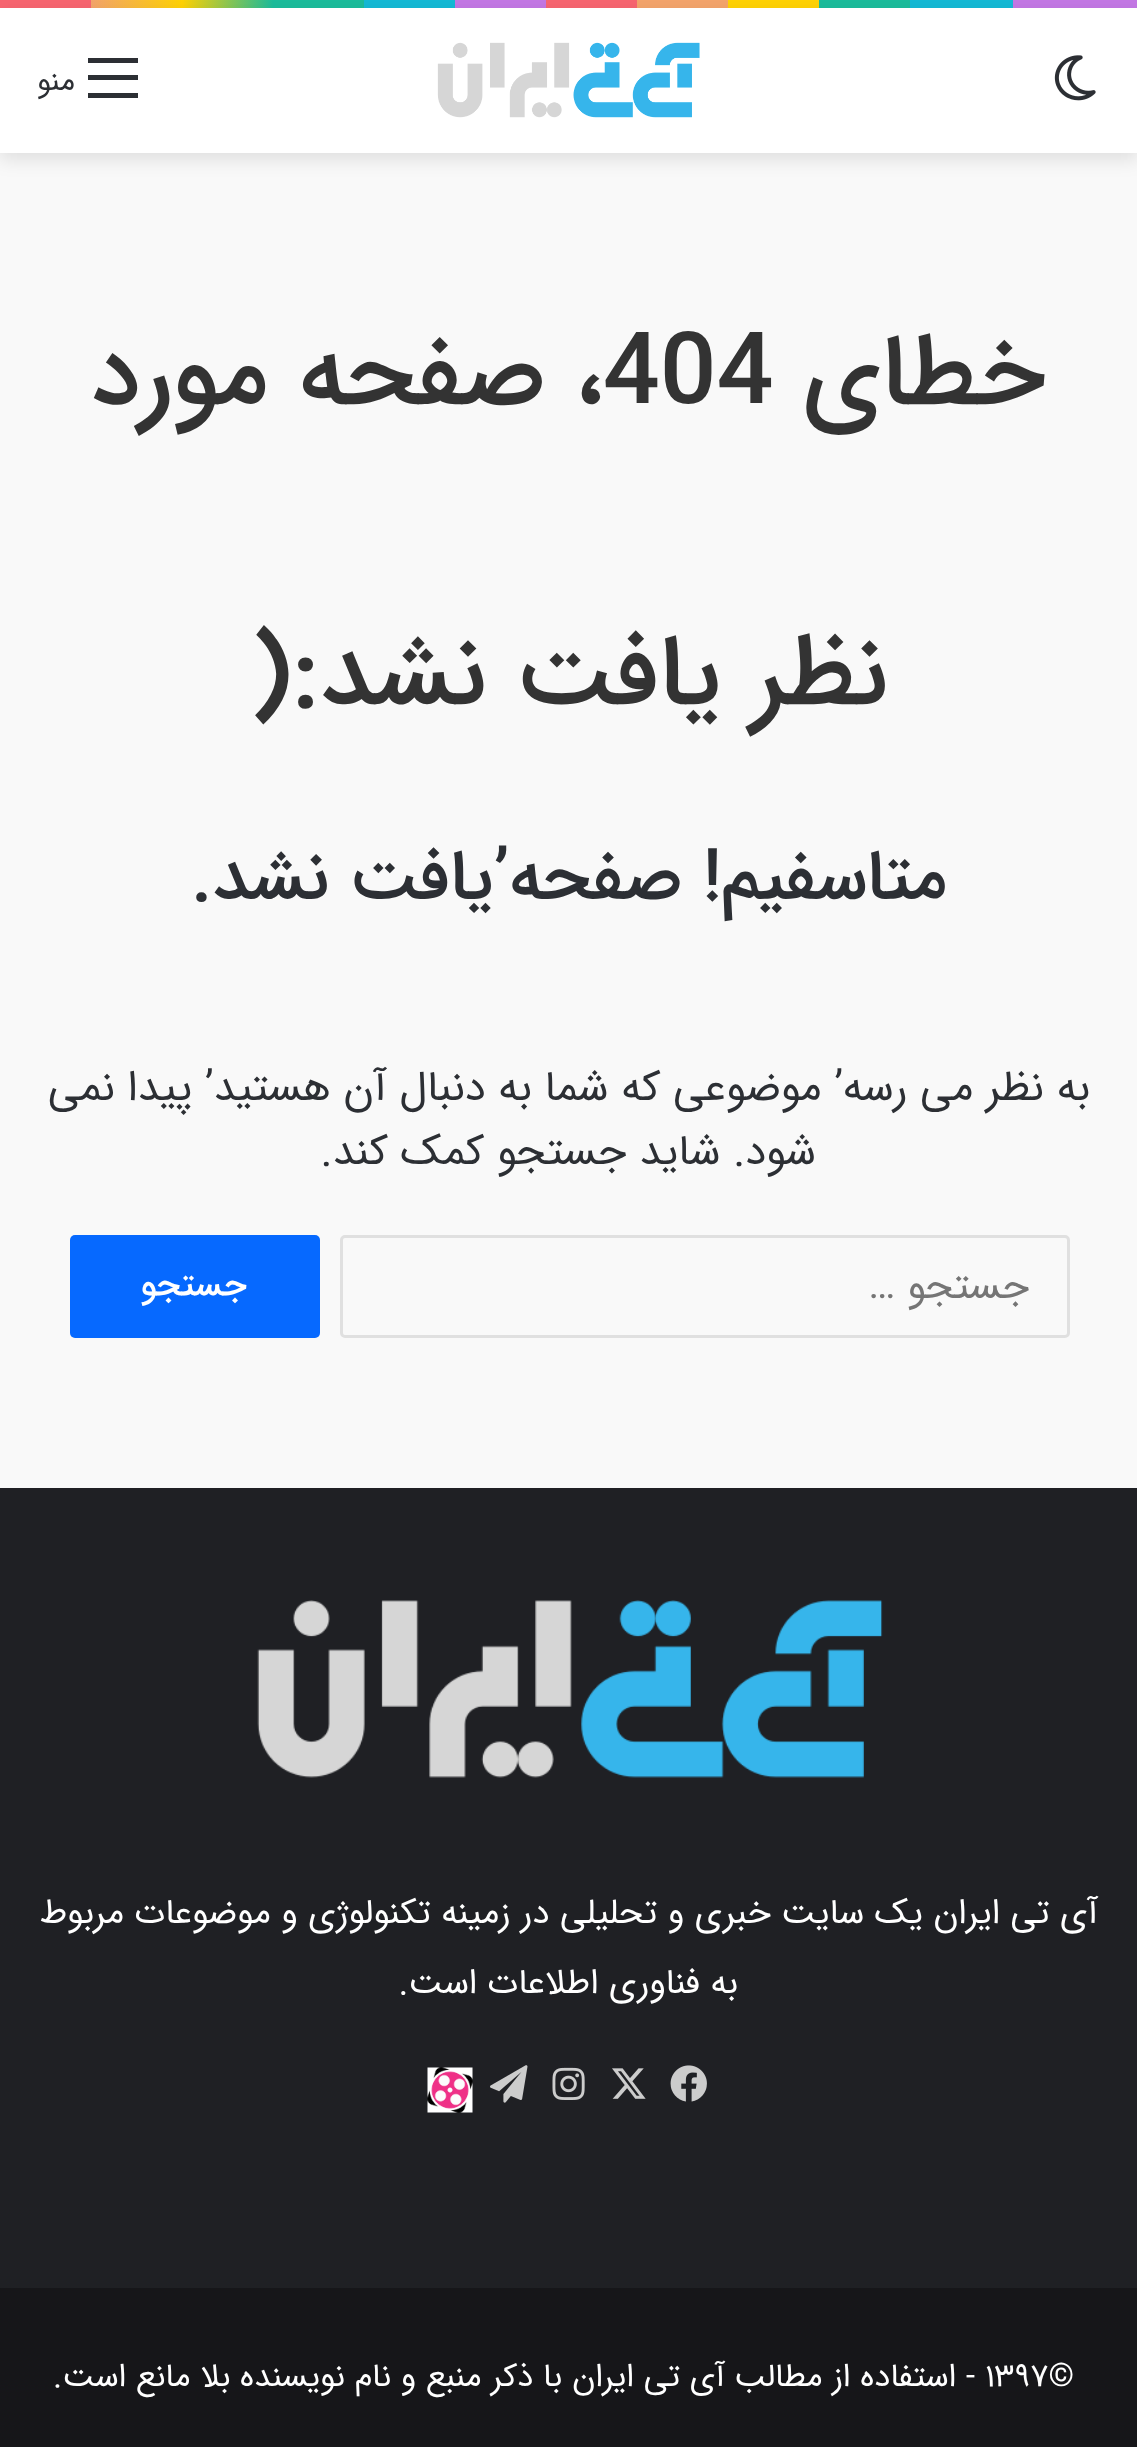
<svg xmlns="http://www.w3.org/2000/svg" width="1137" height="2447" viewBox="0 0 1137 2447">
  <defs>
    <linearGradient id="g1" gradientUnits="userSpaceOnUse" x1="0" y1="3.8" x2="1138" y2="3.7"><stop offset="0" stop-color="rgb(247,101,112)"/><stop offset="0.08" stop-color="rgb(247,101,112)"/><stop offset="0.08" stop-color="rgb(243,164,107)"/><stop offset="0.16" stop-color="rgb(255,210,5)"/><stop offset="0.24" stop-color="rgb(27,188,155)"/><stop offset="0.32" stop-color="rgb(27,188,155)"/><stop offset="0.32" stop-color="rgb(20,185,213)"/><stop offset="0.4" stop-color="rgb(20,185,213)"/><stop offset="0.4" stop-color="rgb(195,119,228)"/><stop offset="0.48" stop-color="rgb(195,119,228)"/><stop offset="0.48" stop-color="rgb(247,101,112)"/><stop offset="0.56" stop-color="rgb(247,101,112)"/><stop offset="0.56" stop-color="rgb(243,164,107)"/><stop offset="0.64" stop-color="rgb(243,164,107)"/><stop offset="0.64" stop-color="rgb(255,210,5)"/><stop offset="0.72" stop-color="rgb(255,210,5)"/><stop offset="0.72" stop-color="rgb(27,188,155)"/><stop offset="0.8" stop-color="rgb(27,188,155)"/><stop offset="0.8" stop-color="rgb(20,185,213)"/><stop offset="0.89" stop-color="rgb(20,185,213)"/><stop offset="0.89" stop-color="rgb(195,119,228)"/><stop offset="1" stop-color="rgb(195,119,228)"/></linearGradient>
  </defs>
  <rect width="100%" height="100%" fill="rgb(249,249,249)"/>
  <rect x="0" y="0" width="1137" height="8" fill="url(#g1)"/>
  <rect x="0" y="15" width="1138" height="145" fill="rgba(0,0,0,0.1)" filter="blur(9px)"/>
  <rect x="0" y="8" width="1137" height="145" fill="rgb(255,255,255)"/>
  <image x="1054" y="55" width="42" height="46" href="pic1.png"/>
  <image x="437" y="42" width="263" height="76" href="pic2.png"/>
  <rect x="88" y="75" width="50" height="5" fill="rgb(44,47,52)"/>
  <rect x="88" y="58" width="50" height="5" fill="rgb(44,47,52)"/>
  <rect x="88" y="93" width="50" height="5" fill="rgb(44,47,52)"/>
  <text x="75" y="90" font-family="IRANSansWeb" font-size="30" direction="rtl" fill="rgb(44,47,52)">منو</text>
  <text x="1046" y="403" font-family="IRANSansWeb" font-size="100" font-weight="500" direction="rtl" fill="rgb(51,51,51)">خطای</text>
  <text x="603" y="403" font-family="IRANSansWeb" font-size="100" font-weight="500" fill="rgb(51,51,51)">404</text>
  <g font-family="IRANSansWeb" font-size="100" font-weight="500" direction="rtl" fill="rgb(51,51,51)">
    <text x="603" y="403">، صفحه مورد</text>
    <text x="888" y="703">نظر یافت نشد:(</text>
  </g>
  <text x="947" y="898" font-family="IRANSansWeb" font-size="70" font-weight="500" direction="rtl" fill="rgb(44,47,52)">متاسفیم! صفحه’یافت نشد.</text>
  <g font-family="IRANSansWeb" font-size="42.5" direction="rtl" fill="rgb(44,47,52)">
    <text x="1090" y="1100">به نظر می رسه’ موضوعی که شما به دنبال آن هستید’ پیدا نمی</text>
    <text x="816" y="1164">شود. شاید جستجو کمک کند.</text>
  </g>
  <rect x="341.5" y="1236.5" width="727" height="100" rx="3.5" fill="none" stroke="rgb(224,224,224)" stroke-width="3"/>
  <text x="1029" y="1298" font-family="IRANSansWeb" font-size="40" direction="rtl" fill="rgb(117,117,117)">جستجو …</text>
  <rect x="70" y="1235" width="250" height="103" rx="5" fill="rgb(6,105,255)"/>
  <text x="247" y="1295" font-family="IRANSansWeb" font-size="35" font-weight="500" direction="rtl" fill="rgb(255,255,255)">جستجو</text>
  <rect x="0" y="1488" width="1137" height="800" fill="rgb(31,32,36)"/>
  <image x="257" y="1600" width="626" height="178" href="pic3.png"/>
  <g font-family="IRANSansWeb" font-size="35" direction="rtl" fill="rgb(255,255,255)">
    <text x="1098" y="1923">آی تی ایران یک سایت خبری و تحلیلی در زمینه تکنولوژی و موضوعات مربوط</text>
    <text x="738" y="1993">به فناوری اطلاعات است.</text>
  </g>
  <image x="670" y="2065" width="37" height="37" href="pic4.png"/>
  <image x="612" y="2068" width="34" height="31" href="pic5.png"/>
  <image x="552" y="2067" width="33" height="33" href="pic6.png"/>
  <image x="490" y="2065" width="38" height="38" href="pic7.png"/>
  <image x="427" y="2067" width="46" height="46" href="pic8.png"/>
  <rect x="0" y="2288" width="1137" height="159" fill="rgb(22,22,25)"/>
  <text x="985" y="2386" font-family="IRANSansWeb" font-size="32.5" fill="rgb(255,255,255)">۱۳۹۷©</text>
  <g font-family="IRANSansWeb" font-size="32.5" direction="rtl" fill="rgb(255,255,255)">
    <text x="975" y="2386">- استفاده از مطالب</text>
    <text x="725" y="2386">آی تی ایران</text>
    <text x="562" y="2386">با ذکر منبع و نام نویسنده بلا مانع است</text>
  </g>
  <text x="53" y="2386" font-family="IRANSansWeb" font-size="32.5" fill="rgb(255,255,255)">.</text>
</svg>
